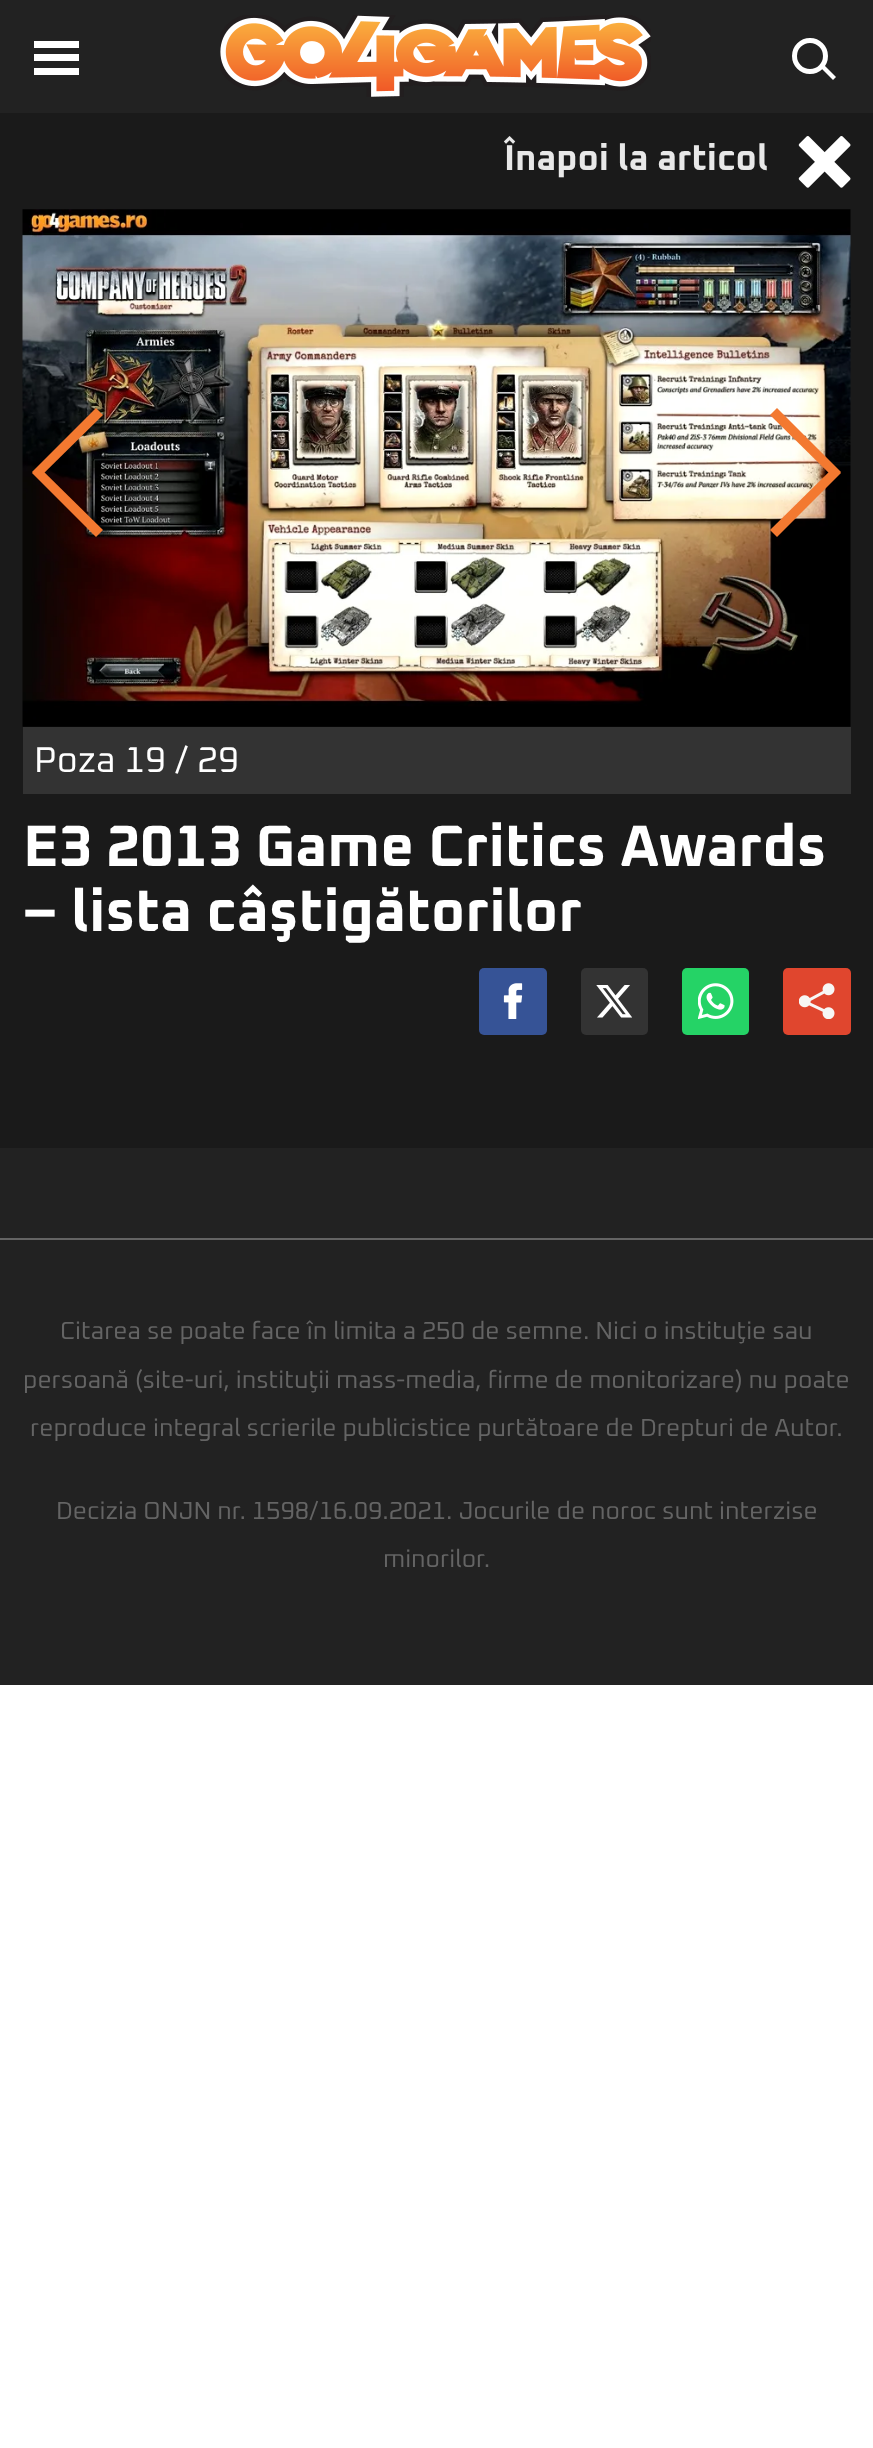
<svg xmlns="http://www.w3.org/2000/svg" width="873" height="2448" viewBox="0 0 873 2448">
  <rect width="100%" height="100%" fill="rgb(255,255,255)"/>
  <rect x="0" y="0" width="873" height="113" fill="rgb(34,34,34)"/>
  <rect x="34" y="54" width="45" height="7" fill="rgb(255,255,255)"/>
  <rect x="34" y="41" width="45" height="7" fill="rgb(255,255,255)"/>
  <rect x="34" y="68" width="45" height="7" fill="rgb(255,255,255)"/>
  <image x="220" y="15" width="431" height="82" href="pic1.png"/>
  <circle cx="810" cy="56" r="15.5" fill="none" stroke="rgb(255,255,255)" stroke-width="5"/>
  <path d="M820 67L823 64L836 77L833 80Z" fill="rgb(255,255,255)"/>
  <rect x="0" y="113" width="873" height="1035" fill="rgb(26,26,26)"/>
  <text x="504" y="170" font-family="Oxanium" font-size="36" font-weight="bold" fill="rgb(232,232,232)">Înapoi la articol</text>
  <image x="798" y="136" width="53" height="52" href="pic2.png"/>
  <image x="22" y="209" width="829" height="518" href="pic3.png"/>
  <path d="M32 472L96 408L103 415L39 478Z" fill="rgb(243,121,48)"/>
  <path d="M39 467L103 530L96 537L32 473Z" fill="rgb(243,121,48)"/>
  <path d="M777 408L841 472L834 478L770 415Z" fill="rgb(243,121,48)"/>
  <path d="M770 530L834 467L841 473L777 537Z" fill="rgb(243,121,48)"/>
  <rect x="23" y="727" width="828" height="67" fill="rgb(51,51,51)"/>
  <text x="34" y="772" font-family="Oxanium" font-size="36" fill="rgb(255,255,255)">Poza 19 / 29</text>
  <g font-family="Oxanium" font-size="58.5" font-weight="bold" fill="rgb(255,255,255)">
    <text>
      <tspan x="23" y="866">E3 2013 Game Critics Awards</tspan>
      <tspan x="23" y="931">– lista câştigătorilor</tspan>
    </text>
  </g>
  <rect x="479" y="968" width="68" height="67" rx="5" fill="rgb(54,83,150)"/>
  <image x="503" y="983" width="20" height="36" href="pic4.png"/>
  <rect x="581" y="968" width="67" height="67" rx="5" fill="rgb(51,51,51)"/>
  <image x="596" y="985" width="36" height="33" href="pic5.png"/>
  <rect x="682" y="968" width="67" height="67" rx="5" fill="rgb(37,211,102)"/>
  <image x="698" y="983" width="36" height="36" href="pic6.png"/>
  <rect x="783" y="968" width="68" height="67" rx="5" fill="rgb(224,70,46)"/>
  <image x="799" y="983" width="36" height="36" href="pic7.png"/>
  <rect x="0" y="1148" width="873" height="537" fill="rgb(34,34,34)"/>
  <rect x="0" y="1238" width="873" height="2" fill="rgb(100,100,100)"/>
  <g font-family="Oxanium" font-size="24.75" fill="rgb(100,100,100)">
    <text x="60" y="1339">Citarea se poate face în limita a 250 de semne. Nici o instituţie sau</text>
    <text x="23" y="1388">persoană (site-uri, instituţii mass-media, firme de monitorizare) nu poate</text>
    <text x="30" y="1436">reproduce integral scrierile publicistice purtătoare de Drepturi de Autor.</text>
    <text x="56" y="1519">Decizia ONJN nr. 1598/16.09.2021. Jocurile de noroc sunt interzise</text>
    <text x="383" y="1567">minorilor.</text>
  </g>
</svg>
